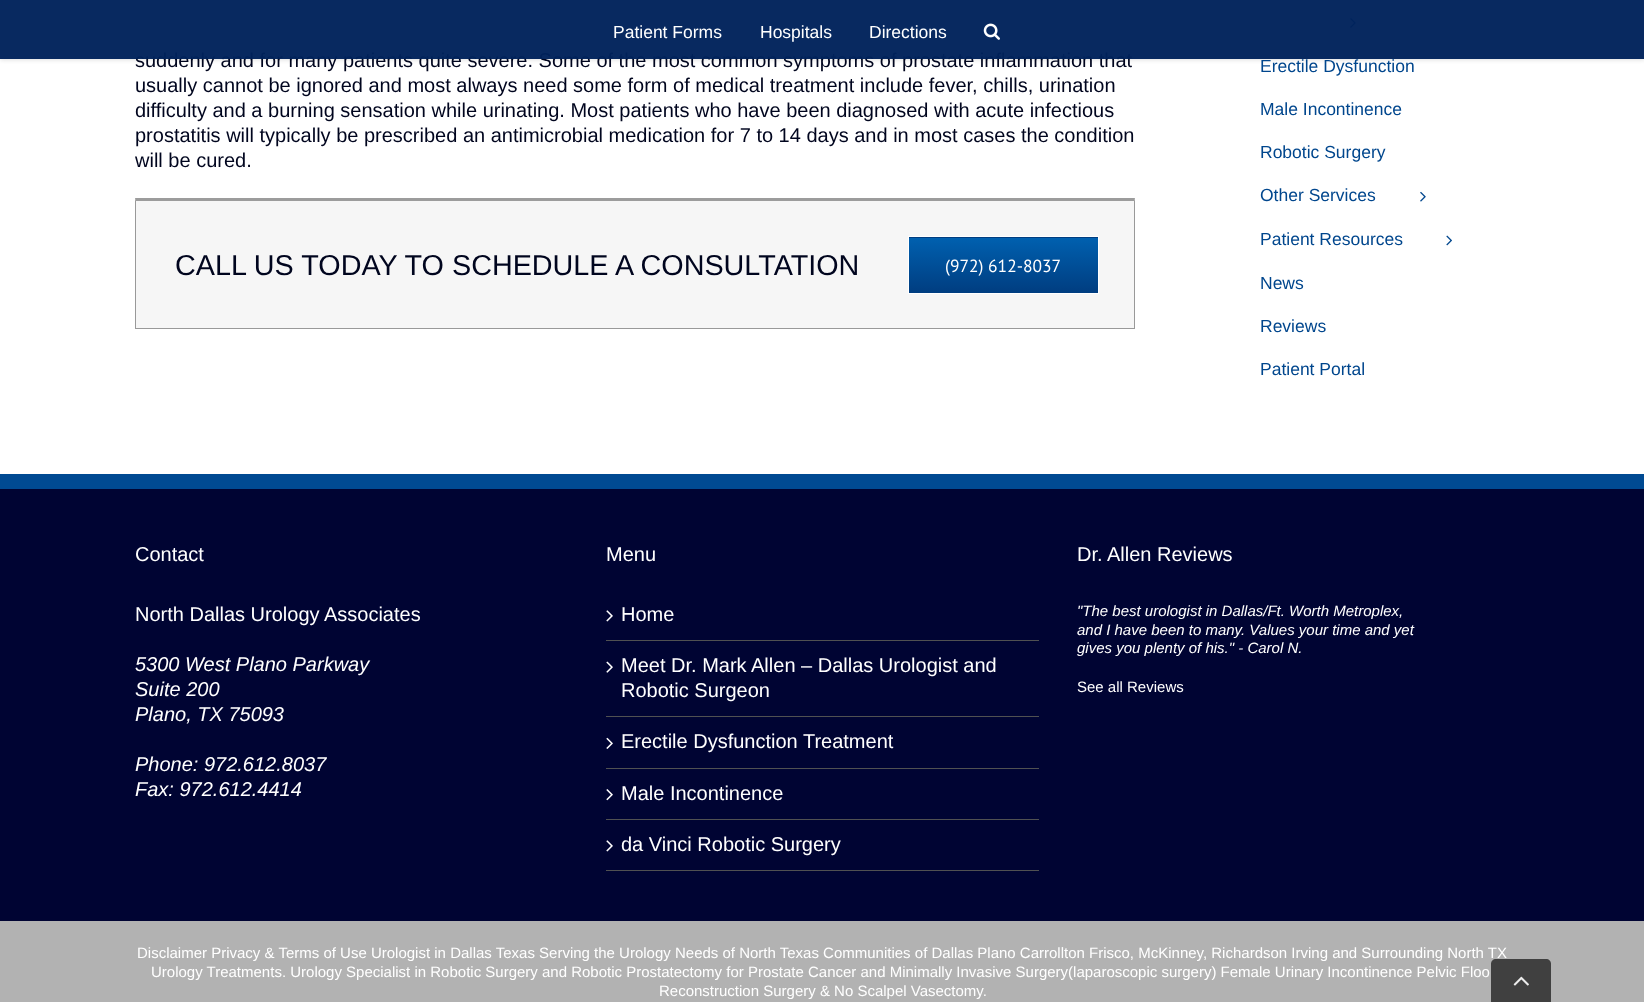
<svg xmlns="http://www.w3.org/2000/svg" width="1644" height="1002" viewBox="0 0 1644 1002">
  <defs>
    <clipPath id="clip1"><path d="M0 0H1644V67H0ZM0 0H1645V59H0Z" clip-rule="evenodd"/></clipPath>
    <linearGradient id="g1" gradientUnits="userSpaceOnUse" x1="1003" y1="183" x2="1003" y2="238"><stop offset="0" stop-color="rgb(0,96,175)"/><stop offset="1" stop-color="rgb(0,61,128)"/></linearGradient>
    <linearGradient id="g2" gradientUnits="userSpaceOnUse" x1="1003" y1="238" x2="1003" y2="293"><stop offset="0" stop-color="rgb(0,96,175)"/><stop offset="1" stop-color="rgb(0,61,128)"/></linearGradient>
  </defs>
  <rect width="100%" height="100%" fill="rgb(255,255,255)"/>
  <image x="1350" y="18" width="6" height="10" href="pic2.png"/>
  <g clip-path="url(#clip1)">
    <rect x="0" y="1" width="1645" height="59" fill="rgba(0,0,0,0.12)" filter="blur(2px)"/>
  </g>
  <text x="135" y="67" font-family="Liberation Sans" font-size="20" fill="rgb(0,5,30)">suddenly and for many patients quite severe. Some of the most common symptoms of prostate inflammation that</text>
  <rect x="0" y="0" width="1644" height="59" fill="rgba(0,34,91,0.97)"/>
  <g font-family="Liberation Sans" font-size="17.5" fill="rgb(255,255,255)">
    <text x="613" y="38">Patient Forms</text>
    <text x="760" y="38">Hospitals</text>
    <text x="869" y="38">Directions</text>
  </g>
  <image x="983" y="23" width="17" height="17" href="pic1.png"/>
  <g font-family="Liberation Sans" font-size="20" fill="rgb(0,5,30)">
    <text>
      <tspan x="135" y="92">usually cannot be ignored and most always need some form of medical treatment include fever, chills, urination</tspan>
      <tspan x="135" y="117">difficulty and a burning sensation while urinating. Most patients who have been diagnosed with acute infectious</tspan>
      <tspan x="135" y="142">prostatitis will typically be prescribed an antimicrobial medication for 7 to 14 days and in most cases the condition</tspan>
      <tspan x="135" y="167">will be cured.</tspan>
    </text>
  </g>
  <rect x="136" y="201" width="998" height="127" fill="rgb(246,246,246)"/>
  <path d="M135 198H1135L1134 201H136Z" fill="rgb(156,156,156)"/>
  <path d="M1135 198V329L1134 328V201Z" fill="rgb(153,153,153)"/>
  <rect x="135" y="328" width="1000" height="1" fill="rgb(153,153,153)"/>
  <path d="M135 329V198L136 201V328Z" fill="rgb(153,153,153)"/>
  <text x="175" y="275" font-family="Liberation Sans" font-size="28.75" fill="rgb(0,5,30)">CALL US TODAY TO SCHEDULE A CONSULTATION</text>
  <rect x="908" y="237" width="191" height="1" fill="url(#g1)"/>
  <rect x="909" y="238" width="189" height="55" fill="url(#g2)"/>
  <rect x="908.5" y="236.5" width="190" height="57" fill="none" stroke="rgb(255,255,255)"/>
  <text x="945" y="272" font-family="PT Sans" font-size="17.5" fill="rgb(255,255,255)">(972) 612-8037</text>
  <g font-family="Liberation Sans" font-size="17.5" fill="rgb(0,70,141)">
    <text x="1260" y="72">Erectile Dysfunction</text>
    <text x="1260" y="115">Male Incontinence</text>
    <text x="1260" y="158">Robotic Surgery</text>
    <text x="1260" y="201">Other Services</text>
  </g>
  <image x="1420" y="191" width="6" height="11" href="pic3.png"/>
  <text x="1260" y="245" font-family="Liberation Sans" font-size="17.5" fill="rgb(0,70,141)">Patient Resources</text>
  <image x="1446" y="235" width="6" height="11" href="pic4.png"/>
  <g font-family="Liberation Sans" font-size="17.5" fill="rgb(0,70,141)">
    <text x="1260" y="289">News</text>
    <text x="1260" y="332">Reviews</text>
    <text x="1260" y="375">Patient Portal</text>
  </g>
  <rect x="0" y="489" width="1644" height="432" fill="rgb(0,4,51)"/>
  <rect x="0" y="474" width="1644" height="15" fill="rgb(0,74,146)"/>
  <g font-family="Liberation Sans" font-size="20" fill="rgb(255,255,255)">
    <text x="135" y="561">Contact</text>
    <text x="135" y="621">North Dallas Urology Associates</text>
  </g>
  <g font-family="Liberation Sans" font-size="20" font-style="italic" fill="rgb(255,255,255)">
    <text>
      <tspan x="135" y="671">5300 West Plano Parkway</tspan>
      <tspan x="135" y="696">Suite 200</tspan>
      <tspan x="135" y="721">Plano, TX 75093</tspan>
    </text>
    <text>
      <tspan x="135" y="771">Phone: 972.612.8037</tspan>
      <tspan x="135" y="796">Fax: 972.612.4414</tspan>
    </text>
  </g>
  <text x="606" y="561" font-family="Liberation Sans" font-size="20" fill="rgb(255,255,255)">Menu</text>
  <rect x="606" y="640" width="433" height="1" fill="rgb(80,81,82)"/>
  <image x="606" y="610" width="7" height="12" href="pic5.png"/>
  <text x="621" y="621" font-family="Liberation Sans" font-size="20" fill="rgb(255,255,255)">Home</text>
  <rect x="606" y="716" width="433" height="1" fill="rgb(80,81,82)"/>
  <image x="606" y="661" width="7" height="12" href="pic6.png"/>
  <g font-family="Liberation Sans" font-size="20" fill="rgb(255,255,255)">
    <text>
      <tspan x="621" y="672">Meet Dr. Mark Allen – Dallas Urologist and</tspan>
      <tspan x="621" y="697">Robotic Surgeon</tspan>
    </text>
  </g>
  <rect x="606" y="768" width="433" height="1" fill="rgb(80,81,82)"/>
  <image x="606" y="737" width="7" height="12" href="pic7.png"/>
  <text x="621" y="748" font-family="Liberation Sans" font-size="20" fill="rgb(255,255,255)">Erectile Dysfunction Treatment</text>
  <rect x="606" y="819" width="433" height="1" fill="rgb(80,81,82)"/>
  <image x="606" y="789" width="7" height="12" href="pic8.png"/>
  <text x="621" y="800" font-family="Liberation Sans" font-size="20" fill="rgb(255,255,255)">Male Incontinence</text>
  <rect x="606" y="870" width="433" height="1" fill="rgb(80,81,82)"/>
  <image x="606" y="840" width="7" height="12" href="pic5.png"/>
  <g font-family="Liberation Sans" font-size="20" fill="rgb(255,255,255)">
    <text x="621" y="851">da Vinci Robotic Surgery</text>
    <text x="1077" y="561">Dr. Allen Reviews</text>
  </g>
  <g font-family="Liberation Sans" font-size="15" font-style="italic" fill="rgb(255,255,255)">
    <text>
      <tspan x="1077" y="616">"The best urologist in Dallas/Ft. Worth Metroplex,</tspan>
      <tspan x="1077" y="635">and I have been to many. Values your time and yet</tspan>
      <tspan x="1077" y="653">gives you plenty of his." - Carol N.</tspan>
    </text>
  </g>
  <text x="1077" y="692" font-family="Liberation Sans" font-size="15" fill="rgb(255,255,255)">See all Reviews</text>
  <rect x="0" y="921" width="1644" height="81" fill="rgb(178,178,178)"/>
  <g font-family="Liberation Sans" font-size="15" fill="rgb(255,255,255)">
    <text x="137" y="958">Disclaimer Privacy &amp; Terms of Use Urologist in Dallas Texas Serving the Urology Needs of North Texas Communities of Dallas Plano Carrollton Frisco, McKinney, Richardson Irving and Surrounding North TX</text>
    <text x="151" y="977">Urology Treatments. Urology Specialist in Robotic Surgery and Robotic Prostatectomy for Prostate Cancer and Minimally Invasive Surgery(laparoscopic surgery) Female Urinary Incontinence Pelvic Floo</text>
    <text x="659" y="996">Reconstruction Surgery &amp; No Scalpel Vasectomy.</text>
  </g>
  <path d="M1496 959H1546C1549 959 1551 961 1551 964V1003H1491V964C1491 961 1493 959 1496 959Z" fill="rgba(51,51,51,0.9)"/>
  <image x="1513" y="976" width="16" height="10" href="pic9.png"/>
</svg>
